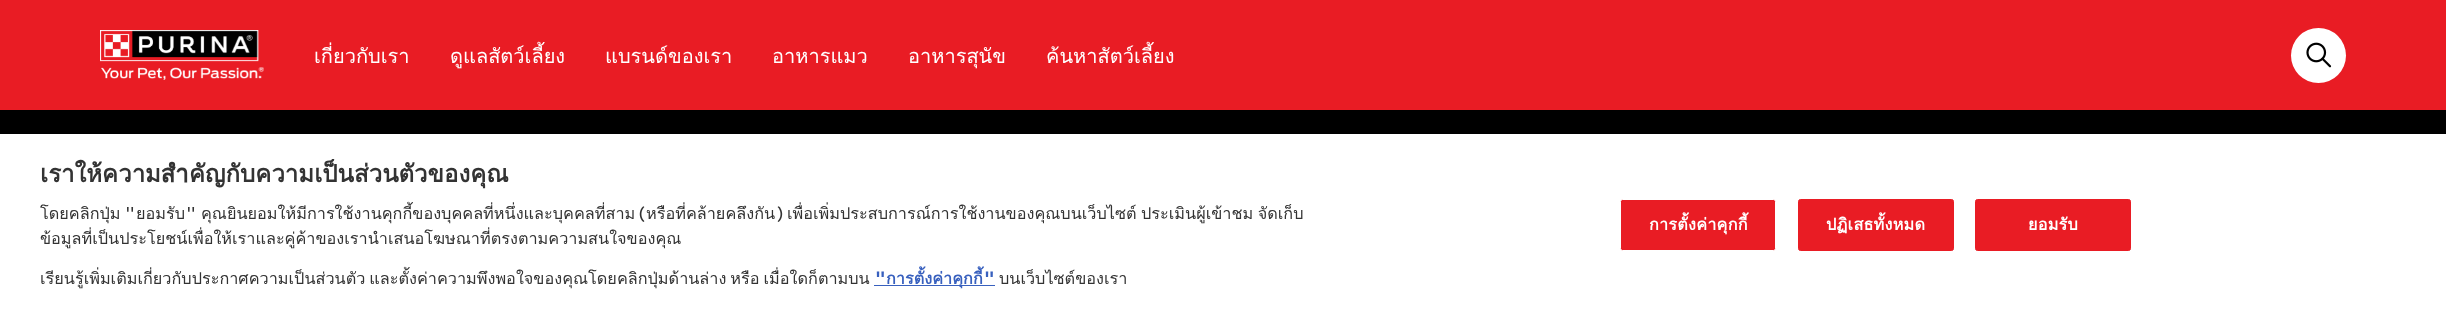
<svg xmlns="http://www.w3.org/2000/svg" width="2446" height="320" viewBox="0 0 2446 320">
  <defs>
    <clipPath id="clip1"><rect x="40" y="159" width="1305" height="149"/></clipPath>
  </defs>
  <rect width="100%" height="100%" fill="rgb(0,0,0)"/>
  <rect x="0" y="0" width="2446" height="110" fill="rgb(233,28,36)"/>
  <image x="100" y="30" width="164" height="50" href="pic1.png"/>
  <g font-family="Loma" font-size="20" fill="rgb(255,255,255)">
    <text x="314" y="63">เกี่ยวกับเรา</text>
    <text x="450" y="63">ดูแลสัตว์เลี้ยง</text>
    <text x="605" y="63">แบรนด์ของเรา</text>
    <text x="772" y="63">อาหารแมว</text>
    <text x="908" y="63">อาหารสุนัข</text>
    <text x="1046" y="63">ค้นหาสัตว์เลี้ยง</text>
  </g>
  <circle cx="2318.5" cy="55.5" r="27.5" fill="rgb(255,255,255)"/>
  <image x="2306" y="42" width="26" height="26" href="pic2.png"/>
  <rect x="0" y="134" width="2446" height="186" fill="rgb(255,255,255)"/>
  <text x="40" y="182" font-family="Loma" font-size="24" font-weight="bold" fill="rgb(51,51,51)">เราให้ความสำคัญกับความเป็นส่วนตัวของคุณ</text>
  <text x="40" y="219" font-family="Loma" font-size="16.25" fill="rgb(51,51,51)">โดยคลิกปุ่ม</text>
  <text x="124" y="219" font-family="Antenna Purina" font-size="16.25" fill="rgb(51,51,51)">"</text>
  <text x="136" y="219" font-family="Loma" font-size="16.25" fill="rgb(51,51,51)">ยอมรับ</text>
  <text x="185" y="219" font-family="Antenna Purina" font-size="16.25" fill="rgb(51,51,51)">"</text>
  <text x="201" y="219" font-family="Loma" font-size="16.25" fill="rgb(51,51,51)">คุณยินยอมให้มีการใช้งานคุกกี้ของบุคคลที่หนึ่งและบุคคลที่สาม</text>
  <text x="638" y="219" font-family="Antenna Purina" font-size="16.25" fill="rgb(51,51,51)">(</text>
  <text x="646" y="219" font-family="Loma" font-size="16.25" fill="rgb(51,51,51)">หรือที่คล้ายคลึงกัน</text>
  <text x="776" y="219" font-family="Antenna Purina" font-size="16.25" fill="rgb(51,51,51)">)</text>
  <text x="787" y="219" word-spacing="-1" font-family="Loma" font-size="16.25" fill="rgb(51,51,51)">เพื่อเพิ่มประสบการณ์การใช้งานของคุณบนเว็บไซต์ ประเมินผู้เข้าชม จัดเก็บ</text>
  <g clip-path="url(#clip1)">
    <g font-family="Loma" font-size="16.25" fill="rgb(51,51,51)">
      <text x="40" y="244">ข้อมูลที่เป็นประโยชน์เพื่อให้เราและคู่ค้าของเรานำเสนอโฆษณาที่ตรงตามความสนใจของคุณ</text>
      <text x="40" y="284" word-spacing="-1.5">เรียนรู้เพิ่มเติมเกี่ยวกับประกาศความเป็นส่วนตัว และตั้งค่าความพึงพอใจของคุณโดยคลิกปุ่มด้านล่าง หรือ เมื่อใดก็ตามบน</text>
    </g>
  </g>
  <text x="874" y="284" font-family="Antenna Purina" font-size="16.25" font-weight="bold" fill="rgb(56,96,190)">"</text>
  <rect x="874" y="285" width="121" height="1" fill="rgb(56,96,190)"/>
  <text x="886" y="284" font-family="Loma" font-size="16.25" font-weight="bold" fill="rgb(56,96,190)">การตั้งค่าคุกกี้</text>
  <text x="983" y="284" font-family="Antenna Purina" font-size="16.25" font-weight="bold" fill="rgb(56,96,190)">"</text>
  <text x="999" y="284" font-family="Loma" font-size="16.25" fill="rgb(51,51,51)">บนเว็บไซต์ของเรา</text>
  <rect x="1620.5" y="199.5" width="155" height="51" rx="2" fill="rgb(233,28,36)" stroke="rgb(255,255,255)"/>
  <text x="1649" y="230" font-family="Loma" font-size="16.25" font-weight="bold" letter-spacing="0.2" fill="rgb(255,255,255)">การตั้งค่าคุกกี้</text>
  <rect x="1798.5" y="199.5" width="155" height="51" rx="2" fill="rgb(233,28,36)" stroke="rgb(233,28,36)"/>
  <text x="1826" y="230" font-family="Loma" font-size="16.25" font-weight="bold" letter-spacing="0.2" fill="rgb(255,255,255)">ปฏิเสธทั้งหมด</text>
  <rect x="1975.5" y="199.5" width="155" height="51" rx="2" fill="rgb(233,28,36)" stroke="rgb(233,28,36)"/>
  <text x="2028" y="230" font-family="Loma" font-size="16.25" font-weight="bold" letter-spacing="0.2" fill="rgb(255,255,255)">ยอมรับ</text>
</svg>
